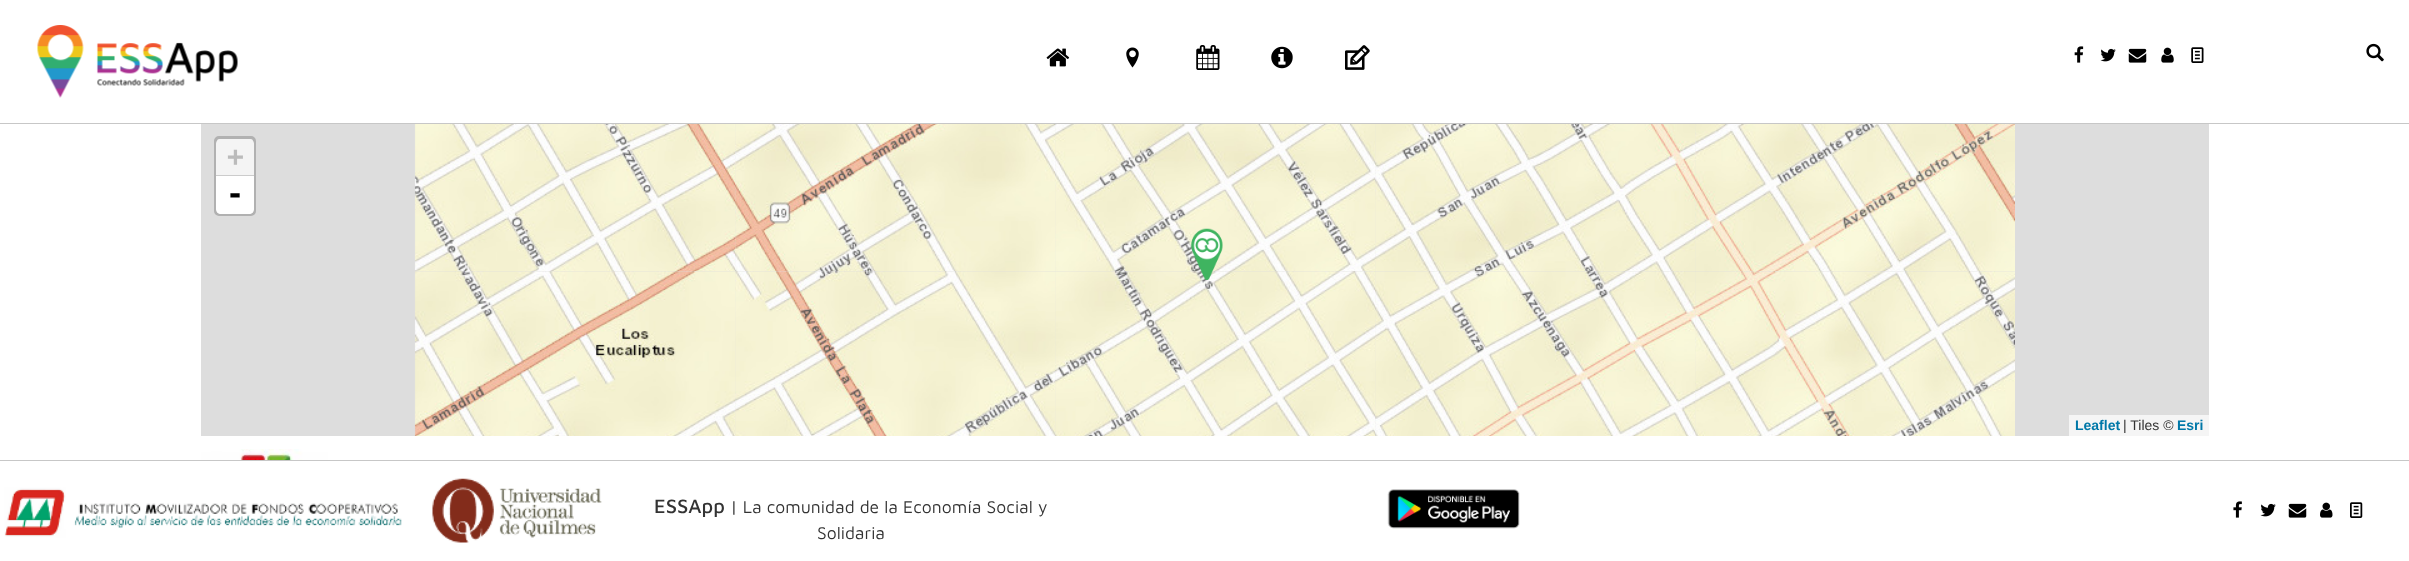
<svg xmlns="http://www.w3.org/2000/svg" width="2409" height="561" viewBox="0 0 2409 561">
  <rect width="100%" height="100%" fill="rgb(255,255,255)"/>
  <rect x="0" y="123" width="2409" height="1" fill="rgb(199,199,199)"/>
  <image x="37" y="25" width="201" height="73" href="pic1.png"/>
  <image x="1046" y="48" width="24" height="19" href="pic2.png"/>
  <image x="1126" y="47" width="13" height="21" href="pic3.png"/>
  <image x="1196" y="45" width="24" height="25" href="pic4.png"/>
  <image x="1271" y="46" width="22" height="23" href="pic5.png"/>
  <image x="1345" y="45" width="25" height="25" href="pic6.png"/>
  <image x="2074" y="46" width="10" height="17" href="pic7.png"/>
  <image x="2100" y="48" width="16" height="14" href="pic8.png"/>
  <image x="2128" y="48" width="19" height="15" href="pic9.png"/>
  <image x="2161" y="47" width="13" height="16" href="pic10.png"/>
  <image x="2191" y="47" width="13" height="16" href="pic11.png"/>
  <image x="2366" y="43" width="18" height="19" href="pic12.png"/>
  <rect x="201" y="124" width="2008" height="312" fill="rgb(221,221,221)"/>
  <image x="414" y="124" width="321" height="147" href="pic13.png"/>
  <image x="735" y="124" width="320" height="147" href="pic14.png"/>
  <image x="1055" y="124" width="320" height="147" href="pic15.png"/>
  <image x="1375" y="124" width="320" height="147" href="pic16.png"/>
  <image x="1695" y="124" width="320" height="147" href="pic17.png"/>
  <image x="414" y="271" width="321" height="165" href="pic18.png"/>
  <image x="735" y="271" width="320" height="165" href="pic19.png"/>
  <image x="1055" y="271" width="320" height="165" href="pic20.png"/>
  <image x="1375" y="271" width="320" height="165" href="pic21.png"/>
  <image x="1695" y="271" width="320" height="165" href="pic22.png"/>
  <image x="1191" y="228" width="32" height="52" href="pic23.png"/>
  <rect x="215.5" y="137.5" width="39" height="77" rx="3.5" fill="none" stroke="rgb(177,177,177)" stroke-width="3"/>
  <path d="M221 139H249C252 139 254 141 254 144V176H216V144C216 141 218 139 221 139Z" fill="rgb(244,244,244)"/>
  <rect x="216" y="175" width="38" height="1" fill="rgb(204,204,204)"/>
  <text x="227" y="166" font-family="DejaVu Sans Mono" font-size="28" font-weight="bold" fill="rgb(187,187,187)">+</text>
  <path d="M216 176H254V209C254 212 252 214 249 214H221C218 214 216 212 216 209Z" fill="rgb(255,255,255)"/>
  <text x="226" y="204" font-family="DejaVu Sans Mono" font-size="30" font-weight="bold" fill="rgb(0,0,0)">-</text>
  <rect x="2069" y="415" width="140" height="21" fill="rgb(245,245,245)"/>
  <text x="2075" y="430" font-family="Liberation Sans" font-size="14" font-weight="bold" fill="rgb(0,120,168)">Leaflet</text>
  <text x="2123" y="430" font-family="Liberation Sans" font-size="14" fill="rgb(51,51,51)">| Tiles ©</text>
  <text x="2177" y="430" font-family="Liberation Sans" font-size="14" font-weight="bold" fill="rgb(0,120,168)">Esri</text>
  <image x="201" y="449" width="127" height="11" href="pic24.png"/>
  <rect x="0" y="460" width="2409" height="1" fill="rgb(199,199,199)"/>
  <image x="4" y="478" width="598" height="65" href="pic25.png"/>
  <text x="654" y="513" font-family="Maven Pro" font-size="20" font-weight="500" fill="rgb(51,51,51)">ESSApp</text>
  <g font-family="Maven Pro" font-size="17.5" fill="rgb(51,51,51)">
    <text x="730" y="513">| La comunidad de la Economía Social y</text>
    <text x="817" y="539">Solidaria</text>
  </g>
  <image x="1387" y="489" width="133" height="40" href="pic26.png"/>
  <image x="2233" y="501" width="9" height="17" href="pic27.png"/>
  <image x="2260" y="503" width="16" height="14" href="pic8.png"/>
  <image x="2288" y="503" width="19" height="15" href="pic9.png"/>
  <image x="2320" y="502" width="13" height="16" href="pic28.png"/>
  <image x="2350" y="502" width="13" height="16" href="pic29.png"/>
</svg>
